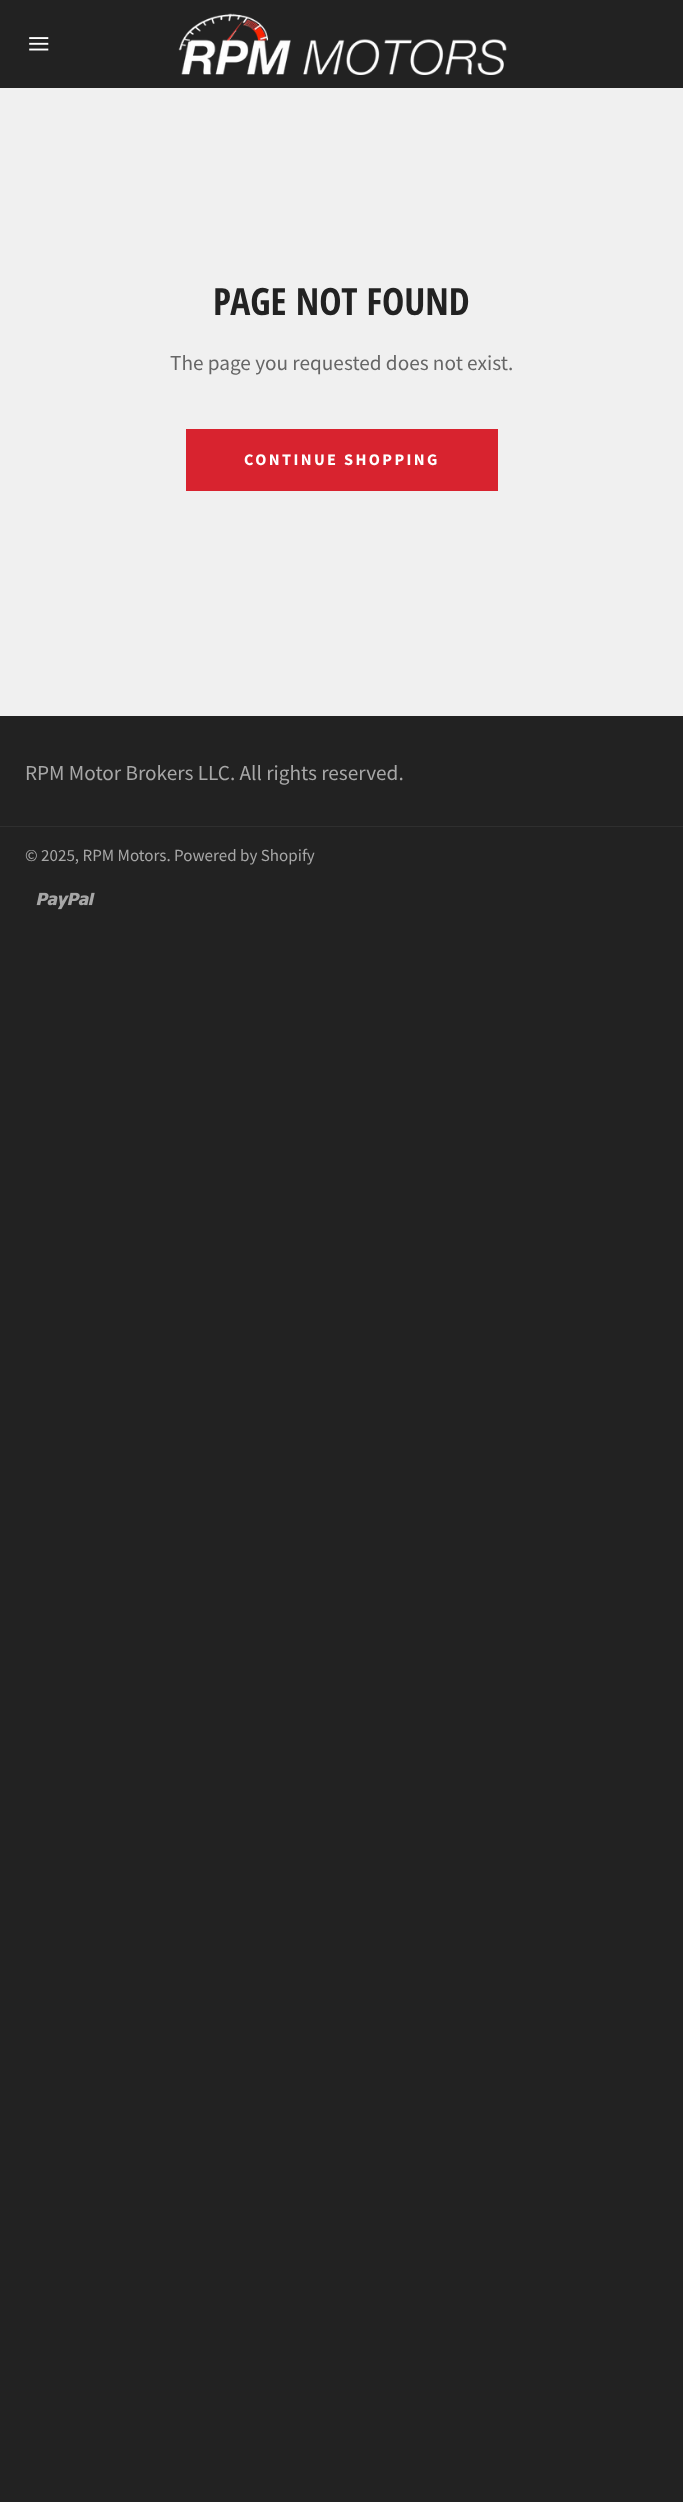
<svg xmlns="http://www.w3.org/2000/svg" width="683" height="2502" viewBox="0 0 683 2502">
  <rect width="100%" height="100%" fill="rgb(34,34,34)"/>
  <rect x="0" y="88" width="683" height="628" fill="rgb(240,240,240)"/>
  <image x="29" y="37" width="20" height="14" href="pic1.png"/>
  <image x="178" y="13" width="329" height="62" href="pic2.png"/>
  <text x="213" y="315" font-family="Open Sans Condensed" font-size="37.5" font-weight="bold" fill="rgb(34,34,34)">PAGE NOT FOUND</text>
  <text x="170" y="370" font-family="Source Sans Pro" font-size="21.25" fill="rgb(102,102,102)">The page you requested does not exist.</text>
  <rect x="186" y="429" width="312" height="62" fill="rgb(216,35,47)"/>
  <text x="244" y="465" font-family="Source Sans Pro" font-size="16.25" font-weight="bold" letter-spacing="2.4" fill="rgb(255,255,255)">CONTINUE SHOPPING</text>
  <text x="25" y="780" font-family="Source Sans Pro" font-size="21.25" fill="rgb(167,167,167)">RPM Motor Brokers LLC. All rights reserved.</text>
  <rect x="0" y="826" width="683" height="1" fill="rgb(47,47,47)"/>
  <text x="25" y="861" font-family="Source Sans Pro" font-size="17" fill="rgb(167,167,167)">© 2025, RPM Motors. Powered by Shopify</text>
  <image x="36" y="892" width="59" height="18" href="pic3.png"/>
</svg>
